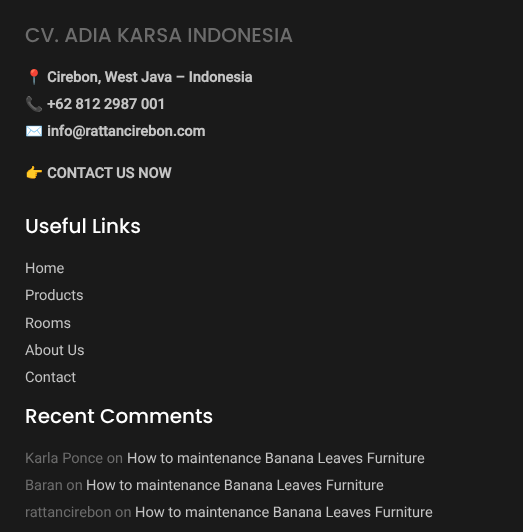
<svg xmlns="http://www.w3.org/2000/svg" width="523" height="532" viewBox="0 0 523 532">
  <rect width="100%" height="100%" fill="rgb(26,26,26)"/>
  <text x="25" y="42" font-family="Poppins" font-size="20" font-weight="500" fill="rgb(108,108,108)">CV. ADIA KARSA INDONESIA</text>
  <text x="25" y="82" font-family="Noto Color Emoji" font-size="14.6" fill="rgb(196,196,196)">📍</text>
  <text x="47" y="82" font-family="Roboto" font-size="14.6" font-weight="bold" fill="rgb(196,196,196)">Cirebon, West Java – Indonesia</text>
  <text x="25" y="109" font-family="Noto Color Emoji" font-size="14.6" fill="rgb(196,196,196)">📞</text>
  <text x="47" y="109" font-family="Roboto" font-size="14.6" font-weight="bold" fill="rgb(196,196,196)">+62 812 2987 001</text>
  <text x="25" y="136" font-family="Noto Color Emoji" font-size="14.6" fill="rgb(196,196,196)">✉️</text>
  <text x="47" y="136" font-family="Roboto" font-size="14.6" font-weight="bold" fill="rgb(196,196,196)">info@rattancirebon.com</text>
  <text x="25" y="178" font-family="Noto Color Emoji" font-size="14.6" fill="rgb(196,196,196)">👉</text>
  <text x="47" y="178" font-family="Roboto" font-size="14.6" font-weight="bold" fill="rgb(196,196,196)">CONTACT US NOW</text>
  <text x="25" y="233" font-family="Poppins" font-size="20" font-weight="500" fill="rgb(255,255,255)">Useful Links</text>
  <g font-family="Roboto" font-size="14.6" fill="rgb(196,196,196)">
    <text>
      <tspan x="25" y="273">Home</tspan>
      <tspan x="25" y="300">Products</tspan>
      <tspan x="25" y="328">Rooms</tspan>
      <tspan x="25" y="355">About Us</tspan>
      <tspan x="25" y="382">Contact</tspan>
    </text>
  </g>
  <text x="25" y="423" font-family="Poppins" font-size="20" font-weight="500" fill="rgb(255,255,255)">Recent Comments</text>
  <text x="25" y="463" font-family="Roboto" font-size="14.6" fill="rgb(108,108,108)">Karla Ponce on</text>
  <text x="127" y="463" font-family="Roboto" font-size="14.6" fill="rgb(196,196,196)">How to maintenance Banana Leaves Furniture</text>
  <text x="25" y="490" font-family="Roboto" font-size="14.6" fill="rgb(108,108,108)">Baran on</text>
  <text x="86" y="490" font-family="Roboto" font-size="14.6" fill="rgb(196,196,196)">How to maintenance Banana Leaves Furniture</text>
  <text x="25" y="517" font-family="Roboto" font-size="14.6" fill="rgb(108,108,108)">rattancirebon on</text>
  <text x="135" y="517" font-family="Roboto" font-size="14.6" fill="rgb(196,196,196)">How to maintenance Banana Leaves Furniture</text>
</svg>
